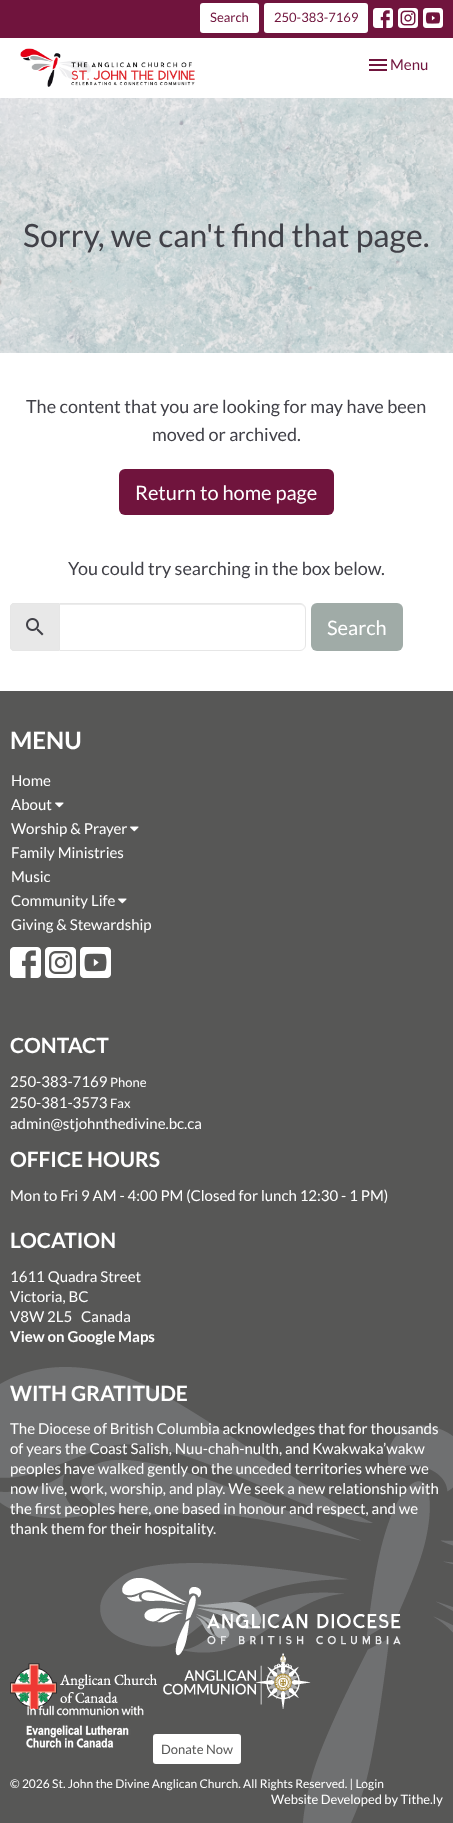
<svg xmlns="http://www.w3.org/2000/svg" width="453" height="1823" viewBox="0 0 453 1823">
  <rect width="100%" height="100%" fill="rgb(255,255,255)"/>
  <rect x="0" y="0" width="453" height="38" fill="rgb(112,20,61)"/>
  <rect x="200" y="3" width="59" height="30" rx="3" fill="rgb(255,255,255)"/>
  <text x="210" y="22" font-family="Lato" font-size="13" fill="rgb(112,20,61)">Search</text>
  <rect x="264" y="3" width="104" height="30" rx="3" fill="rgb(255,255,255)"/>
  <text x="274" y="22" font-family="Lato" font-size="13" fill="rgb(112,20,61)">250-383-7169</text>
  <image x="373" y="8" width="20" height="20" href="pic1.png"/>
  <image x="398" y="8" width="20" height="20" href="pic2.png"/>
  <image x="423" y="8" width="20" height="20" href="pic3.png"/>
  <image x="20" y="48" width="175" height="39" href="pic4.png"/>
  <image x="369" y="59" width="18" height="12" href="pic5.png"/>
  <text x="390" y="70" font-family="Lato" font-size="15" fill="rgb(112,20,61)">Menu</text>
  <image x="0" y="98" width="453" height="255" href="pic6.png"/>
  <text x="23" y="247" font-family="Lato" font-size="32" fill="rgb(65,65,72)">Sorry, we can't find that page.</text>
  <g font-family="Lato" font-size="18" fill="rgb(65,65,72)">
    <text x="26" y="413">The content that you are looking for may have been</text>
    <text x="152" y="441">moved or archived.</text>
  </g>
  <rect x="119" y="469" width="215" height="46" rx="6" fill="rgb(112,20,61)"/>
  <text x="135" y="500" font-family="Lato" font-size="20" fill="rgb(255,255,255)">Return to home page</text>
  <text x="68" y="575" font-family="Lato" font-size="18" fill="rgb(65,65,72)">You could try searching in the box below.</text>
  <path d="M14 603H59V651H14C12 651 10 649 10 647V607C10 605 12 603 14 603Z" fill="rgb(232,232,232)"/>
  <path d="M14 603H59V651H14C12 651 10 649 10 647V607C10 605 12 603 14 603ZM14 604H59V650H14C12 650 11 649 11 647V607C11 605 12 604 14 604Z" fill="rgb(230,230,230)" fill-rule="evenodd"/>
  <image x="26" y="618" width="18" height="18" href="pic7.png"/>
  <path d="M60 605H300C303 605 305 607 305 610V609C305 606 303 604 300 604H60Z" fill="rgb(236,236,236)"/>
  <path d="M59.5 603.5H300C303 603.5 305.5 606 305.5 609V645C305.5 648 303 650.5 300 650.5H59.5Z" fill="none" stroke="rgb(230,230,230)"/>
  <rect x="311" y="603" width="92" height="48" rx="6" fill="rgb(160,171,167)"/>
  <text x="327" y="635" font-family="Lato" font-size="20" fill="rgb(255,255,255)">Search</text>
  <rect x="0" y="691" width="453" height="1132" fill="rgb(87,87,86)"/>
  <image x="0" y="1367" width="453" height="456" href="pic8.png"/>
  <text x="10" y="749" font-family="Lato" font-size="24" font-weight="bold" fill="rgb(255,255,255)">MENU</text>
  <g font-family="Lato" font-size="15" fill="rgb(255,255,255)">
    <text>
      <tspan x="11" y="786">Home</tspan>
      <tspan x="11" y="810">About</tspan>
    </text>
  </g>
  <image x="55" y="802" width="9" height="6" href="pic9.png"/>
  <text x="11" y="834" font-family="Lato" font-size="15" fill="rgb(255,255,255)">Worship &amp; Prayer</text>
  <image x="130" y="826" width="9" height="6" href="pic9.png"/>
  <g font-family="Lato" font-size="15" fill="rgb(255,255,255)">
    <text>
      <tspan x="11" y="858">Family Ministries</tspan>
      <tspan x="11" y="882">Music</tspan>
      <tspan x="11" y="906">Community Life</tspan>
    </text>
  </g>
  <image x="118" y="898" width="9" height="6" href="pic9.png"/>
  <text x="11" y="930" font-family="Lato" font-size="15" fill="rgb(255,255,255)">Giving &amp; Stewardship</text>
  <image x="10" y="947" width="31" height="31" href="pic10.png"/>
  <image x="45" y="947" width="31" height="31" href="pic11.png"/>
  <image x="80" y="947" width="31" height="31" href="pic12.png"/>
  <text x="10" y="1053" font-family="Lato" font-size="21" font-weight="bold" fill="rgb(255,255,255)">CONTACT</text>
  <text x="10" y="1087" font-family="Lato" font-size="15" fill="rgb(255,255,255)">250-383-7169</text>
  <text x="110" y="1087" font-family="Lato" font-size="13" fill="rgb(255,255,255)">Phone</text>
  <text x="10" y="1108" font-family="Lato" font-size="15" fill="rgb(255,255,255)">250-381-3573</text>
  <text x="110" y="1108" font-family="Lato" font-size="13" fill="rgb(255,255,255)">Fax</text>
  <text x="10" y="1129" font-family="Lato" font-size="15" fill="rgb(255,255,255)">admin@stjohnthedivine.bc.ca</text>
  <text x="10" y="1167" font-family="Lato" font-size="21" font-weight="bold" fill="rgb(255,255,255)">OFFICE HOURS</text>
  <text x="10" y="1201" font-family="Lato" font-size="15" fill="rgb(255,255,255)">Mon to Fri 9 AM - 4:00 PM (Closed for lunch 12:30 - 1 PM)</text>
  <text x="10" y="1248" font-family="Lato" font-size="21" font-weight="bold" fill="rgb(255,255,255)">LOCATION</text>
  <g font-family="Lato" font-size="15" fill="rgb(255,255,255)">
    <text>
      <tspan x="10" y="1282">1611 Quadra Street</tspan>
      <tspan x="10" y="1302">Victoria, BC</tspan>
      <tspan x="10" y="1322">V8W 2L5</tspan>
    </text>
    <text x="81" y="1322">Canada</text>
  </g>
  <text x="10" y="1342" font-family="Lato" font-size="15" font-weight="bold" fill="rgb(255,255,255)">View on Google Maps</text>
  <text x="10" y="1401" font-family="Lato" font-size="21" font-weight="bold" fill="rgb(255,255,255)">WITH GRATITUDE</text>
  <g font-family="Lato" font-size="15" fill="rgb(255,255,255)">
    <text>
      <tspan x="10" y="1434">The Diocese of British Columbia acknowledges that for thousands</tspan>
      <tspan x="10" y="1454">of years the Coast Salish, Nuu-chah-nulth, and Kwakwaka’wakw</tspan>
      <tspan x="10" y="1474">peoples have walked gently on the unceded territories where we</tspan>
      <tspan x="10" y="1494">now live, work, worship, and play. We seek a new relationship with</tspan>
      <tspan x="10" y="1514">the first peoples here, one based in honour and respect, and we</tspan>
      <tspan x="10" y="1534">thank them for their hospitality.</tspan>
    </text>
  </g>
  <image x="122" y="1578" width="279" height="78" href="pic13.png"/>
  <image x="10" y="1663" width="147" height="46" href="pic14.png"/>
  <image x="163" y="1653" width="148" height="56" href="pic15.png"/>
  <image x="26" y="1705" width="118" height="43" href="pic16.png"/>
  <rect x="153" y="1734" width="88" height="30" rx="3" fill="rgb(255,255,255)"/>
  <text x="161" y="1754" font-family="Lato" font-size="13" fill="rgb(87,87,86)">Donate Now</text>
  <text x="10" y="1788" font-family="Lato" font-size="12" fill="rgb(255,255,255)">© 2026 St. John the Divine Anglican Church. All Rights Reserved. | Login</text>
  <text x="271" y="1804" font-family="Lato" font-size="12.9" fill="rgb(255,255,255)">Website Developed by Tithe.ly</text>
</svg>
